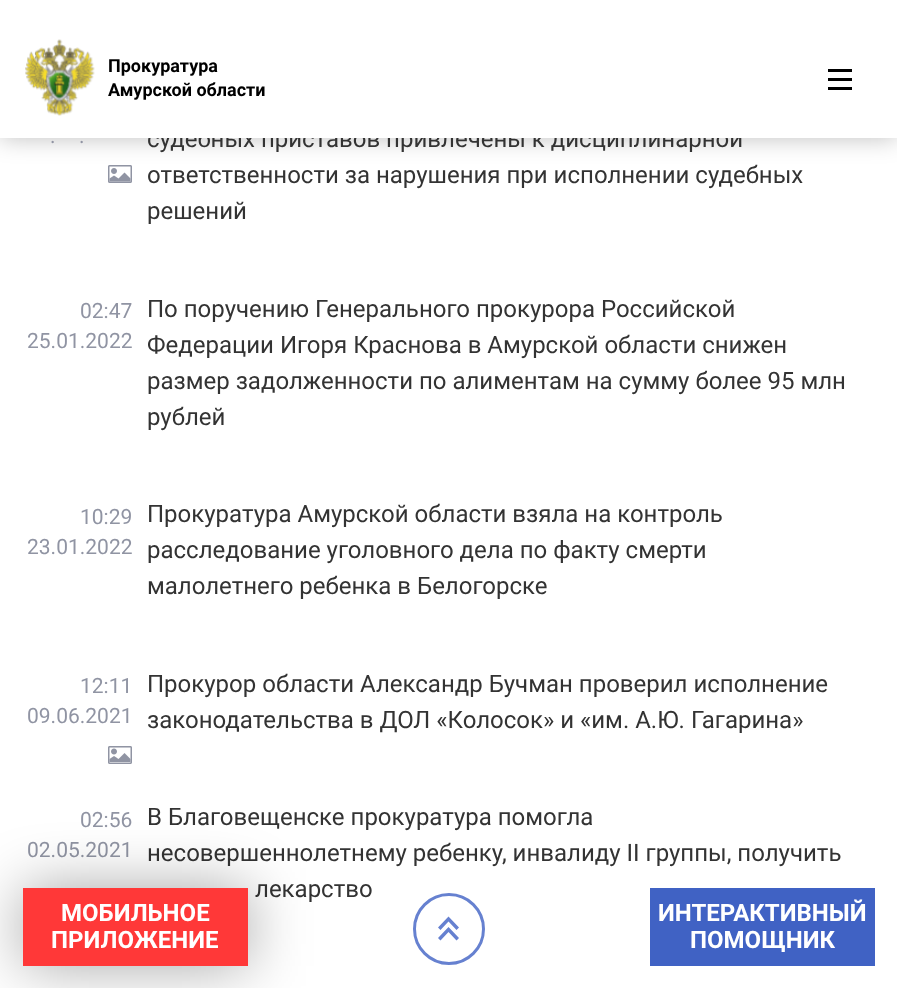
<svg xmlns="http://www.w3.org/2000/svg" width="897" height="988" viewBox="0 0 897 988">
  <rect width="100%" height="100%" fill="rgb(255,255,255)"/>
  <image x="108" y="165" width="24" height="18" href="pic2.png"/>
  <rect x="0" y="0" width="897" height="138" fill="rgba(0,0,0,0.25)" filter="blur(12px)"/>
  <text x="147" y="147" font-family="Roboto" font-size="24" fill="rgb(51,51,51)">судебных приставов привлечены к дисциплинарной</text>
  <rect x="0" y="0" width="897" height="138" fill="rgb(255,255,255)"/>
  <image x="25" y="39" width="70" height="77" href="pic1.png"/>
  <g font-family="'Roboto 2'" font-size="18" font-weight="bold" fill="rgb(0,0,0)">
    <text>
      <tspan x="108" y="72">Прокуратура</tspan>
      <tspan x="108" y="96">Амурской области</tspan>
    </text>
  </g>
  <rect x="828" y="78" width="24" height="3" fill="rgb(0,0,0)"/>
  <rect x="828" y="69" width="24" height="3" fill="rgb(0,0,0)"/>
  <rect x="828" y="87" width="24" height="3" fill="rgb(0,0,0)"/>
  <g font-family="Roboto" font-size="21" fill="rgb(144,148,163)">
    <text x="50" y="143">.</text>
    <text x="79" y="143">.</text>
  </g>
  <g font-family="Roboto" font-size="24" fill="rgb(51,51,51)">
    <text>
      <tspan x="147" y="183">ответственности за нарушения при исполнении судебных</tspan>
      <tspan x="147" y="219">решений</tspan>
    </text>
  </g>
  <g font-family="Roboto" font-size="21" fill="rgb(144,148,163)">
    <text x="80" y="318">02:47</text>
    <text x="27" y="348">25.01.2022</text>
  </g>
  <g font-family="Roboto" font-size="24" fill="rgb(51,51,51)">
    <text>
      <tspan x="147" y="317">По поручению Генерального прокурора Российской</tspan>
      <tspan x="147" y="353">Федерации Игоря Краснова в Амурской области снижен</tspan>
      <tspan x="147" y="389">размер задолженности по алиментам на сумму более 95 млн</tspan>
      <tspan x="147" y="425">рублей</tspan>
    </text>
  </g>
  <g font-family="Roboto" font-size="21" fill="rgb(144,148,163)">
    <text x="80" y="524">10:29</text>
    <text x="27" y="554">23.01.2022</text>
  </g>
  <g font-family="Roboto" font-size="24" fill="rgb(51,51,51)">
    <text>
      <tspan x="147" y="522">Прокуратура Амурской области взяла на контроль</tspan>
      <tspan x="147" y="558">расследование уголовного дела по факту смерти</tspan>
      <tspan x="147" y="594">малолетнего ребенка в Белогорске</tspan>
    </text>
  </g>
  <g font-family="Roboto" font-size="21" fill="rgb(144,148,163)">
    <text x="80" y="693">12:11</text>
    <text x="27" y="723">09.06.2021</text>
  </g>
  <image x="108" y="746" width="24" height="18" href="pic3.png"/>
  <g font-family="Roboto" font-size="24" fill="rgb(51,51,51)">
    <text>
      <tspan x="147" y="692">Прокурор области Александр Бучман проверил исполнение</tspan>
      <tspan x="147" y="728">законодательства в ДОЛ «Колосок» и «им. А.Ю. Гагарина»</tspan>
    </text>
  </g>
  <g font-family="Roboto" font-size="21" fill="rgb(144,148,163)">
    <text x="80" y="827">02:56</text>
    <text x="27" y="857">02.05.2021</text>
  </g>
  <g font-family="Roboto" font-size="24" fill="rgb(51,51,51)">
    <text>
      <tspan x="147" y="825">В Благовещенске прокуратура помогла</tspan>
      <tspan x="147" y="861">несовершеннолетнему ребенку, инвалиду II группы, получить</tspan>
    </text>
    <text x="255" y="897">лекарство</text>
  </g>
  <rect x="23" y="888" width="225" height="78" fill="rgba(0,0,0,0.35)" filter="blur(30px)"/>
  <rect x="23" y="888" width="225" height="78" fill="rgb(255,56,56)"/>
  <g font-family="Roboto" font-size="24" font-weight="bold" fill="rgb(255,255,255)">
    <text x="61" y="921">МОБИЛЬНОЕ</text>
    <text x="51" y="948">ПРИЛОЖЕНИЕ</text>
  </g>
  <circle cx="449" cy="929" r="34.5" fill="none" stroke="rgb(102,129,208)" stroke-width="3"/>
  <path d="M438 927.5L440.5 930L448.5 921.5L456.5 930L459 927.5L448.5 916.5Z" fill="rgb(102,129,208)"/>
  <path d="M438 938L440.5 940.5L448.5 932L456.5 940.5L459 938L448.5 927Z" fill="rgb(102,129,208)"/>
  <rect x="650" y="888" width="225" height="78" fill="rgb(64,98,196)"/>
  <g font-family="Roboto" font-size="24" font-weight="bold" fill="rgb(255,255,255)">
    <text x="658" y="921">ИНТЕРАКТИВНЫЙ</text>
    <text x="690" y="948">ПОМОЩНИК</text>
  </g>
</svg>
